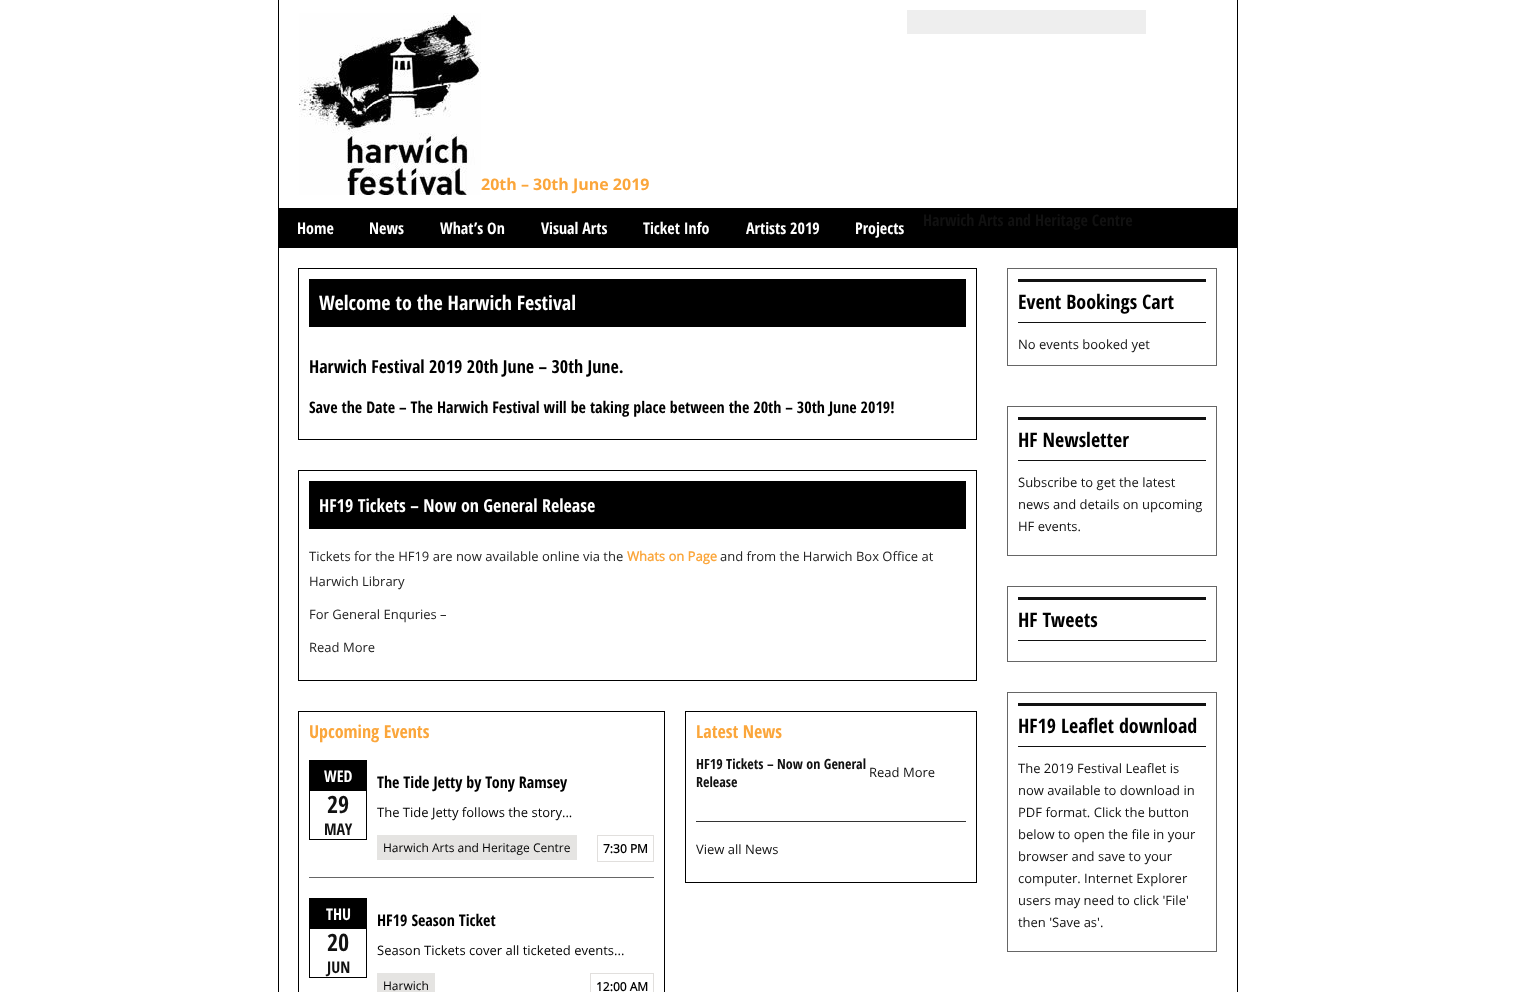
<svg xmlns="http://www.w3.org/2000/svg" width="1515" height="992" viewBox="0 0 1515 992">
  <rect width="100%" height="100%" fill="rgb(255,255,255)"/>
  <rect x="1237" y="0" width="1" height="992" fill="rgb(0,0,0)"/>
  <rect x="278" y="0" width="1" height="992" fill="rgb(0,0,0)"/>
  <image x="299" y="13" width="182" height="182" href="pic1.png"/>
  <text x="481" y="190" font-family="Open Sans" font-size="16" font-weight="bold" fill="rgb(251,166,59)">20th – 30th June 2019</text>
  <rect x="907" y="10" width="239" height="24" fill="rgb(238,238,238)"/>
  <rect x="279" y="208" width="958" height="40" fill="rgb(0,0,0)"/>
  <g font-family="Open Sans Condensed" font-size="16" font-weight="bold" fill="rgb(255,255,255)">
    <text x="297" y="234">Home</text>
    <text x="369" y="234">News</text>
    <text x="440" y="234">What’s On</text>
    <text x="541" y="234">Visual Arts</text>
    <text x="643" y="234">Ticket Info</text>
    <text x="746" y="234">Artists 2019</text>
    <text x="855" y="234">Projects</text>
  </g>
  <text x="923" y="226" font-family="Open Sans Condensed" font-size="16" font-weight="bold" fill="rgb(17,17,17)">Harwich Arts and Heritage Centre</text>
  <rect x="298.5" y="268.5" width="678" height="171" fill="none" stroke="rgb(0,0,0)"/>
  <rect x="309" y="279" width="657" height="48" fill="rgb(0,0,0)"/>
  <text x="319" y="310" font-family="Open Sans Condensed" font-size="20" font-weight="bold" fill="rgb(255,255,255)">Welcome to the Harwich Festival</text>
  <text x="309" y="373" font-family="Open Sans Condensed" font-size="18" font-weight="bold" fill="rgb(0,0,0)">Harwich Festival 2019 20th June – 30th June.</text>
  <text x="309" y="413" font-family="Open Sans Condensed" font-size="16" font-weight="bold" fill="rgb(0,0,0)">Save the Date – The Harwich Festival will be taking place between the 20th – 30th June 2019!</text>
  <rect x="298.5" y="470.5" width="678" height="210" fill="none" stroke="rgb(0,0,0)"/>
  <rect x="309" y="481" width="657" height="48" fill="rgb(0,0,0)"/>
  <text x="319" y="512" font-family="Open Sans Condensed" font-size="18" font-weight="bold" fill="rgb(255,255,255)">HF19 Tickets – Now on General Release</text>
  <text x="309" y="561" font-family="Open Sans" font-size="13" fill="rgb(34,34,34)">Tickets for the HF19 are now available online via the</text>
  <text x="627" y="561" font-family="'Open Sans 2'" font-size="13" font-weight="bold" fill="rgb(251,166,59)">Whats on Page</text>
  <g font-family="Open Sans" font-size="13" fill="rgb(34,34,34)">
    <text x="720" y="561">and from the Harwich Box Office at</text>
    <text x="309" y="586">Harwich Library</text>
    <text x="309" y="619">For General Enquries –</text>
    <text x="309" y="652">Read More</text>
  </g>
  <rect x="298.5" y="711.5" width="366" height="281" fill="none" stroke="rgb(0,0,0)"/>
  <text x="309" y="738" font-family="Open Sans Condensed" font-size="18" font-weight="bold" fill="rgb(251,166,59)">Upcoming Events</text>
  <rect x="309" y="877" width="345" height="1" fill="rgb(102,102,102)"/>
  <rect x="309.5" y="760.5" width="57" height="79" fill="none" stroke="rgb(0,0,0)"/>
  <rect x="310" y="761" width="56" height="30" fill="rgb(0,0,0)"/>
  <text x="324" y="782" font-family="Open Sans Condensed" font-size="16" font-weight="bold" fill="rgb(255,255,255)">WED</text>
  <text x="327" y="813" font-family="Open Sans Condensed" font-size="24" font-weight="bold" fill="rgb(17,17,17)">29</text>
  <text x="324" y="835" font-family="Open Sans Condensed" font-size="16" font-weight="bold" fill="rgb(17,17,17)">MAY</text>
  <text x="377" y="788" font-family="Open Sans Condensed" font-size="16" font-weight="bold" fill="rgb(0,0,0)">The Tide Jetty by Tony Ramsey</text>
  <text x="377" y="817" font-family="Open Sans" font-size="13" fill="rgb(0,0,0)">The Tide Jetty follows the story...</text>
  <rect x="377" y="835" width="200" height="25" fill="rgb(229,228,226)"/>
  <text x="383" y="852" font-family="Open Sans" font-size="12" fill="rgb(0,0,0)">Harwich Arts and Heritage Centre</text>
  <rect x="597.5" y="835.5" width="56" height="26" fill="none" stroke="rgb(225,223,221)"/>
  <text x="603" y="853" font-family="'Open Sans 2'" font-size="12" font-weight="bold" fill="rgb(0,0,0)">7:30 PM</text>
  <rect x="309.5" y="898.5" width="57" height="79" fill="none" stroke="rgb(0,0,0)"/>
  <rect x="310" y="899" width="56" height="30" fill="rgb(0,0,0)"/>
  <text x="326" y="920" font-family="Open Sans Condensed" font-size="16" font-weight="bold" fill="rgb(255,255,255)">THU</text>
  <text x="327" y="951" font-family="Open Sans Condensed" font-size="24" font-weight="bold" fill="rgb(17,17,17)">20</text>
  <text x="327" y="973" font-family="Open Sans Condensed" font-size="16" font-weight="bold" fill="rgb(17,17,17)">JUN</text>
  <text x="377" y="926" font-family="Open Sans Condensed" font-size="16" font-weight="bold" fill="rgb(0,0,0)">HF19 Season Ticket</text>
  <text x="377" y="955" font-family="Open Sans" font-size="13" fill="rgb(0,0,0)">Season Tickets cover all ticketed events...</text>
  <rect x="377" y="973" width="58" height="19" fill="rgb(229,228,226)"/>
  <text x="383" y="990" font-family="Open Sans" font-size="12" fill="rgb(0,0,0)">Harwich</text>
  <rect x="590.5" y="973.5" width="63" height="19" fill="none" stroke="rgb(225,223,221)"/>
  <text x="596" y="991" font-family="'Open Sans 2'" font-size="12" font-weight="bold" fill="rgb(0,0,0)">12:00 AM</text>
  <rect x="685.5" y="711.5" width="291" height="171" fill="none" stroke="rgb(0,0,0)"/>
  <text x="696" y="738" font-family="Open Sans Condensed" font-size="18" font-weight="bold" fill="rgb(251,166,59)">Latest News</text>
  <rect x="696" y="821" width="270" height="1" fill="rgb(51,51,51)"/>
  <g font-family="Open Sans Condensed" font-size="14" font-weight="bold" fill="rgb(17,17,17)">
    <text>
      <tspan x="696" y="769">HF19 Tickets – Now on General</tspan>
      <tspan x="696" y="787">Release</tspan>
    </text>
  </g>
  <g font-family="Open Sans" font-size="13" fill="rgb(17,17,17)">
    <text x="869" y="777">Read More</text>
    <text x="696" y="854">View all News</text>
  </g>
  <rect x="1007.5" y="268.5" width="209" height="97" fill="none" stroke="rgb(102,102,102)"/>
  <rect x="1018" y="279" width="188" height="3" fill="rgb(17,17,17)"/>
  <rect x="1018" y="322" width="188" height="1" fill="rgb(17,17,17)"/>
  <text x="1018" y="309" font-family="Open Sans Condensed" font-size="20" font-weight="bold" fill="rgb(0,0,0)">Event Bookings Cart</text>
  <text x="1018" y="349" font-family="Open Sans" font-size="13" fill="rgb(17,17,17)">No events booked yet</text>
  <rect x="1007.5" y="406.5" width="209" height="149" fill="none" stroke="rgb(102,102,102)"/>
  <rect x="1018" y="417" width="188" height="3" fill="rgb(17,17,17)"/>
  <rect x="1018" y="460" width="188" height="1" fill="rgb(17,17,17)"/>
  <text x="1018" y="447" font-family="Open Sans Condensed" font-size="20" font-weight="bold" fill="rgb(0,0,0)">HF Newsletter</text>
  <g font-family="Open Sans" font-size="13" fill="rgb(17,17,17)">
    <text>
      <tspan x="1018" y="487">Subscribe to get the latest</tspan>
      <tspan x="1018" y="509">news and details on upcoming</tspan>
      <tspan x="1018" y="531">HF events.</tspan>
    </text>
  </g>
  <rect x="1007.5" y="586.5" width="209" height="75" fill="none" stroke="rgb(102,102,102)"/>
  <rect x="1018" y="597" width="188" height="3" fill="rgb(17,17,17)"/>
  <rect x="1018" y="640" width="188" height="1" fill="rgb(17,17,17)"/>
  <text x="1018" y="627" font-family="Open Sans Condensed" font-size="20" font-weight="bold" fill="rgb(0,0,0)">HF Tweets</text>
  <rect x="1007.5" y="692.5" width="209" height="259" fill="none" stroke="rgb(102,102,102)"/>
  <rect x="1018" y="703" width="188" height="3" fill="rgb(17,17,17)"/>
  <rect x="1018" y="746" width="188" height="1" fill="rgb(17,17,17)"/>
  <text x="1018" y="733" font-family="Open Sans Condensed" font-size="20" font-weight="bold" fill="rgb(0,0,0)">HF19 Leaflet download</text>
  <g font-family="Open Sans" font-size="13" fill="rgb(17,17,17)">
    <text>
      <tspan x="1018" y="773">The 2019 Festival Leaflet is</tspan>
      <tspan x="1018" y="795">now available to download in</tspan>
      <tspan x="1018" y="817">PDF format. Click the button</tspan>
      <tspan x="1018" y="839">below to open the file in your</tspan>
      <tspan x="1018" y="861">browser and save to your</tspan>
      <tspan x="1018" y="883">computer. Internet Explorer</tspan>
      <tspan x="1018" y="905">users may need to click 'File'</tspan>
      <tspan x="1018" y="927">then 'Save as'.</tspan>
    </text>
  </g>
</svg>
